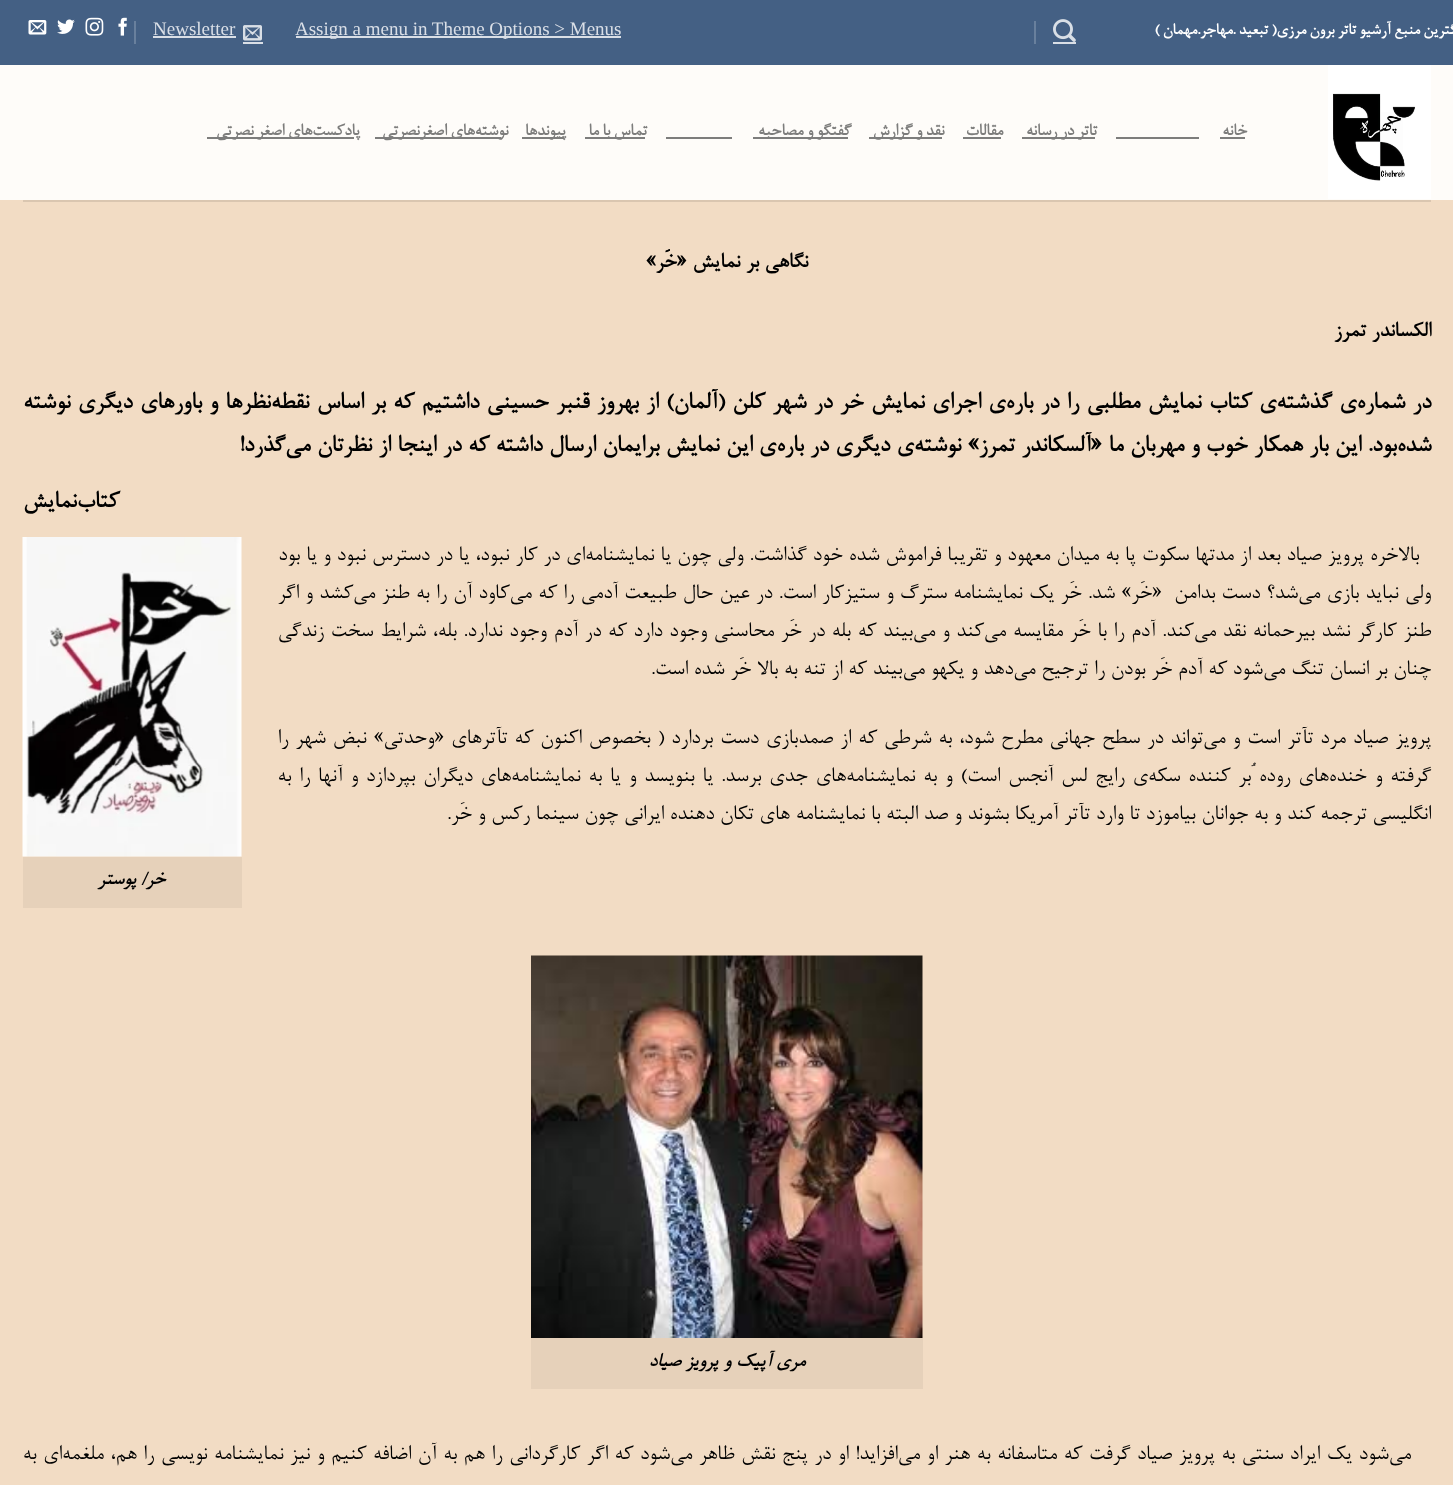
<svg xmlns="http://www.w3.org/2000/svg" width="1453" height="1485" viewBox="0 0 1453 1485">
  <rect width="100%" height="100%" fill="rgb(242,220,196)"/>
  <rect x="0" y="0" width="1453" height="65" fill="rgb(68,96,132)"/>
  <text x="1472" y="34" word-spacing="-1" font-family="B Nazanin" font-size="17.8" font-weight="bold" letter-spacing="0.9" direction="rtl" fill="rgb(255,255,255)">بزرگترین منبع آرشیو تاتر برون مرزی( تبعید .مهاجر.مهمان )</text>
  <image x="1053" y="19" width="23" height="23" href="pic1.png"/>
  <rect x="1053" y="42" width="23" height="2" fill="rgb(218,223,230)"/>
  <rect x="1034" y="21" width="2" height="23" fill="rgb(105,128,157)"/>
  <rect x="296" y="36" width="325" height="2" fill="rgb(218,223,230)"/>
  <text x="295" y="35" font-family="Liberation Serif" font-size="19" fill="rgb(218,223,231)">Assign a menu in Theme Options &gt; Menus</text>
  <image x="243" y="25" width="19" height="16" href="pic2.png"/>
  <rect x="243" y="42" width="20" height="2" fill="rgb(218,223,230)"/>
  <text x="153" y="35" font-family="Liberation Serif" font-size="19" fill="rgb(218,223,231)">Newsletter</text>
  <rect x="153" y="36" width="83" height="2" fill="rgb(218,223,230)"/>
  <rect x="134" y="21" width="2" height="23" fill="rgb(105,128,157)"/>
  <image x="118" y="17" width="9" height="19" href="pic3.png"/>
  <image x="85" y="17" width="19" height="19" href="pic4.png"/>
  <image x="57" y="19" width="18" height="15" href="pic5.png"/>
  <image x="28" y="20" width="19" height="15" href="pic6.png"/>
  <rect x="0" y="65" width="1453" height="135" fill="rgb(254,252,249)"/>
  <image x="1328" y="65" width="103" height="134" href="pic7.png"/>
  <text x="1247" y="135" font-family="B Nazanin" font-size="19" font-weight="bold" letter-spacing="0.4" direction="rtl" fill="rgb(125,125,124)">خانه</text>
  <rect x="1220" y="137" width="25" height="2" fill="rgb(125,125,124)"/>
  <rect x="1022" y="137" width="73" height="2" fill="rgb(125,125,124)"/>
  <g font-family="B Nazanin" font-size="19" font-weight="bold" letter-spacing="0.4" direction="rtl" fill="rgb(125,125,124)">
    <text x="1097" y="135" word-spacing="-1">تاتر در رسانه</text>
    <text x="1003" y="135">مقالات</text>
  </g>
  <rect x="963" y="137" width="38" height="2" fill="rgb(125,125,124)"/>
  <rect x="869" y="137" width="73" height="2" fill="rgb(125,125,124)"/>
  <text x="944" y="135" word-spacing="-1" font-family="B Nazanin" font-size="19" font-weight="bold" letter-spacing="0.4" direction="rtl" fill="rgb(125,125,124)">نقد و گزارش</text>
  <rect x="753" y="137" width="95" height="2" fill="rgb(125,125,124)"/>
  <text x="851" y="135" word-spacing="-1" font-family="B Nazanin" font-size="19" font-weight="bold" letter-spacing="0.4" direction="rtl" fill="rgb(125,125,124)">گفتگو و مصاحبه</text>
  <rect x="585" y="137" width="60" height="2" fill="rgb(125,125,124)"/>
  <text x="647" y="135" word-spacing="-1" font-family="B Nazanin" font-size="19" font-weight="bold" letter-spacing="0.4" direction="rtl" fill="rgb(125,125,124)">تماس با ما</text>
  <rect x="522" y="137" width="42" height="2" fill="rgb(125,125,124)"/>
  <text x="566" y="135" font-family="B Nazanin" font-size="19" font-weight="bold" letter-spacing="0.4" direction="rtl" fill="rgb(125,125,124)">پیوندها</text>
  <rect x="375" y="137" width="126" height="2" fill="rgb(125,125,124)"/>
  <text x="508" y="135" word-spacing="-1" font-family="B Nazanin" font-size="19" font-weight="bold" letter-spacing="0.4" direction="rtl" fill="rgb(125,125,124)">نوشته‌های اصغرنصرتی</text>
  <rect x="207" y="137" width="147" height="2" fill="rgb(125,125,124)"/>
  <text x="360" y="135" word-spacing="-1" font-family="B Nazanin" font-size="19" font-weight="bold" letter-spacing="0.4" direction="rtl" fill="rgb(125,125,124)">پادکست‌‌های اصغر نصرتی</text>
  <rect x="1116" y="137" width="83" height="2" fill="rgb(125,125,124)"/>
  <rect x="666" y="137" width="66" height="2" fill="rgb(125,125,124)"/>
  <rect x="23" y="200" width="1408" height="2" fill="rgb(218,198,176)"/>
  <g font-family="B Nazanin" font-size="23.75" font-weight="bold" direction="rtl" fill="rgb(0,0,0)">
    <text x="808" y="267">نگاهي بر نمايش «خََر»</text>
    <text x="1431" y="336">الكساندر تمرز</text>
  </g>
  <g font-family="B Nazanin" font-size="26.73" font-weight="bold" direction="rtl" fill="rgb(0,0,0)">
    <text>
      <tspan x="1431" y="408" word-spacing="0.95">در شماره‌ي گذشته‌ي كتاب نمايش مطلبي را در باره‌ي اجراي نمايش خر در شهر كلن (آلمان) از بهروز قنبر حسيني داشتيم كه بر اساس نقطه‌نظرها و باورهاي ديگري نوشته</tspan>
      <tspan x="1431" y="451">شده‌بود. اين بار همكار خوب و مهربان ما «آلسكاندر تمرز» نوشته‌ي ديگري در باره‌ي اين نمايش برايمان ارسال داشته كه در اينجا از نظرتان مي‌گذرد!</tspan>
    </text>
    <text x="119" y="507">كتاب‌نمايش</text>
  </g>
  <g font-family="B Nazanin" font-size="23.75" direction="rtl" fill="rgb(0,0,0)">
    <text x="1419" y="560" word-spacing="0.25">بالاخره پرويز صياد بعد از مدتها سكوت پا به ميدان معهود و تقريبا فراموش شده خود گذاشت. ولي چون يا نمايشنامه‌اي در كار نبود، يا در دسترس نبود و يا بود</text>
    <text x="1431" y="598" word-spacing="0.5">ولي نبايد بازي مي‌شد؟ دست بدامن</text>
    <text x="1162" y="598" word-spacing="0.5">«خَر» شد. خَر يك نمايشنامه سترگ و ستيزكار است. در عين حال طبيعت آدمي را كه مي‌كاود آن را به طنز مي‌كشد و اگر</text>
    <text>
      <tspan x="1431" y="636" word-spacing="0.9">طنز كارگر نشد بيرحمانه نقد مي‌كند. آدم را با خَر مقايسه مي‌كند و مي‌بيند كه بله در خَر محاسني وجود دارد كه در آدم وجود ندارد. بله، شرايط سخت زندگي</tspan>
      <tspan x="1431" y="674">چنان بر انسان تنگ مي‌شود كه آدم خَر بودن را ترجيح مي‌دهد و يكهو مي‌بيند كه از تنه به بالا خَر شده است.</tspan>
    </text>
    <text>
      <tspan x="1431" y="743" word-spacing="1.2">پرويز صياد مرد تآتر است و مي‌تواند در سطح جهاني مطرح شود، به شرطي كه از صمدبازي دست بردارد ( بخصوص اكنون كه تآترهاي «وحدتي» نبض شهر را</tspan>
      <tspan x="1431" y="781" word-spacing="2.1">گرفته و خنده‌هاي روده ُبر كننده سكه‌ي رايج لس آنجس است‌) و به نمايشنامه‌هاي جدي برسد. يا بنويسد و يا به نمايشنامه‌هاي ديگران بپردازد و آنها را به</tspan>
      <tspan x="1431" y="819">انگليسي ترجمه كند و به جوانان بياموزد تا وارد تآتر آمريكا بشوند و صد البته با نمايشنامه هاي تكان دهنده ايراني چون سينما ركس و خَر.</tspan>
    </text>
  </g>
  <image x="22" y="537" width="220" height="320" href="pic8.png"/>
  <rect x="23" y="857" width="219" height="51" fill="rgb(230,209,186)"/>
  <text x="165" y="884" font-family="B Nazanin" font-size="21.5" font-weight="bold" font-style="italic" direction="rtl" fill="rgb(0,0,0)">خر/ پوستر</text>
  <image x="531" y="955" width="392" height="383" href="pic9.png"/>
  <rect x="531" y="1338" width="392" height="51" fill="rgb(230,209,186)"/>
  <text x="805" y="1366" font-family="B Nazanin" font-size="21.5" font-weight="bold" font-style="italic" direction="rtl" fill="rgb(0,0,0)">مری آپیک و پرویز صیاد</text>
  <text x="1411" y="1459" word-spacing="0.8" font-family="B Nazanin" font-size="23.75" direction="rtl" fill="rgb(0,0,0)">مي‌شود يك ايراد سنتي به پرويز صياد گرفت كه متاسفانه به هنر او مي‌افزايد! او در پنج نقش ظاهر مي‌شود كه اگر كارگرداني را هم به آن اضافه كنيم و نيز نمايشنامه نويسي را هم، ملغمه‌اي به</text>
</svg>
